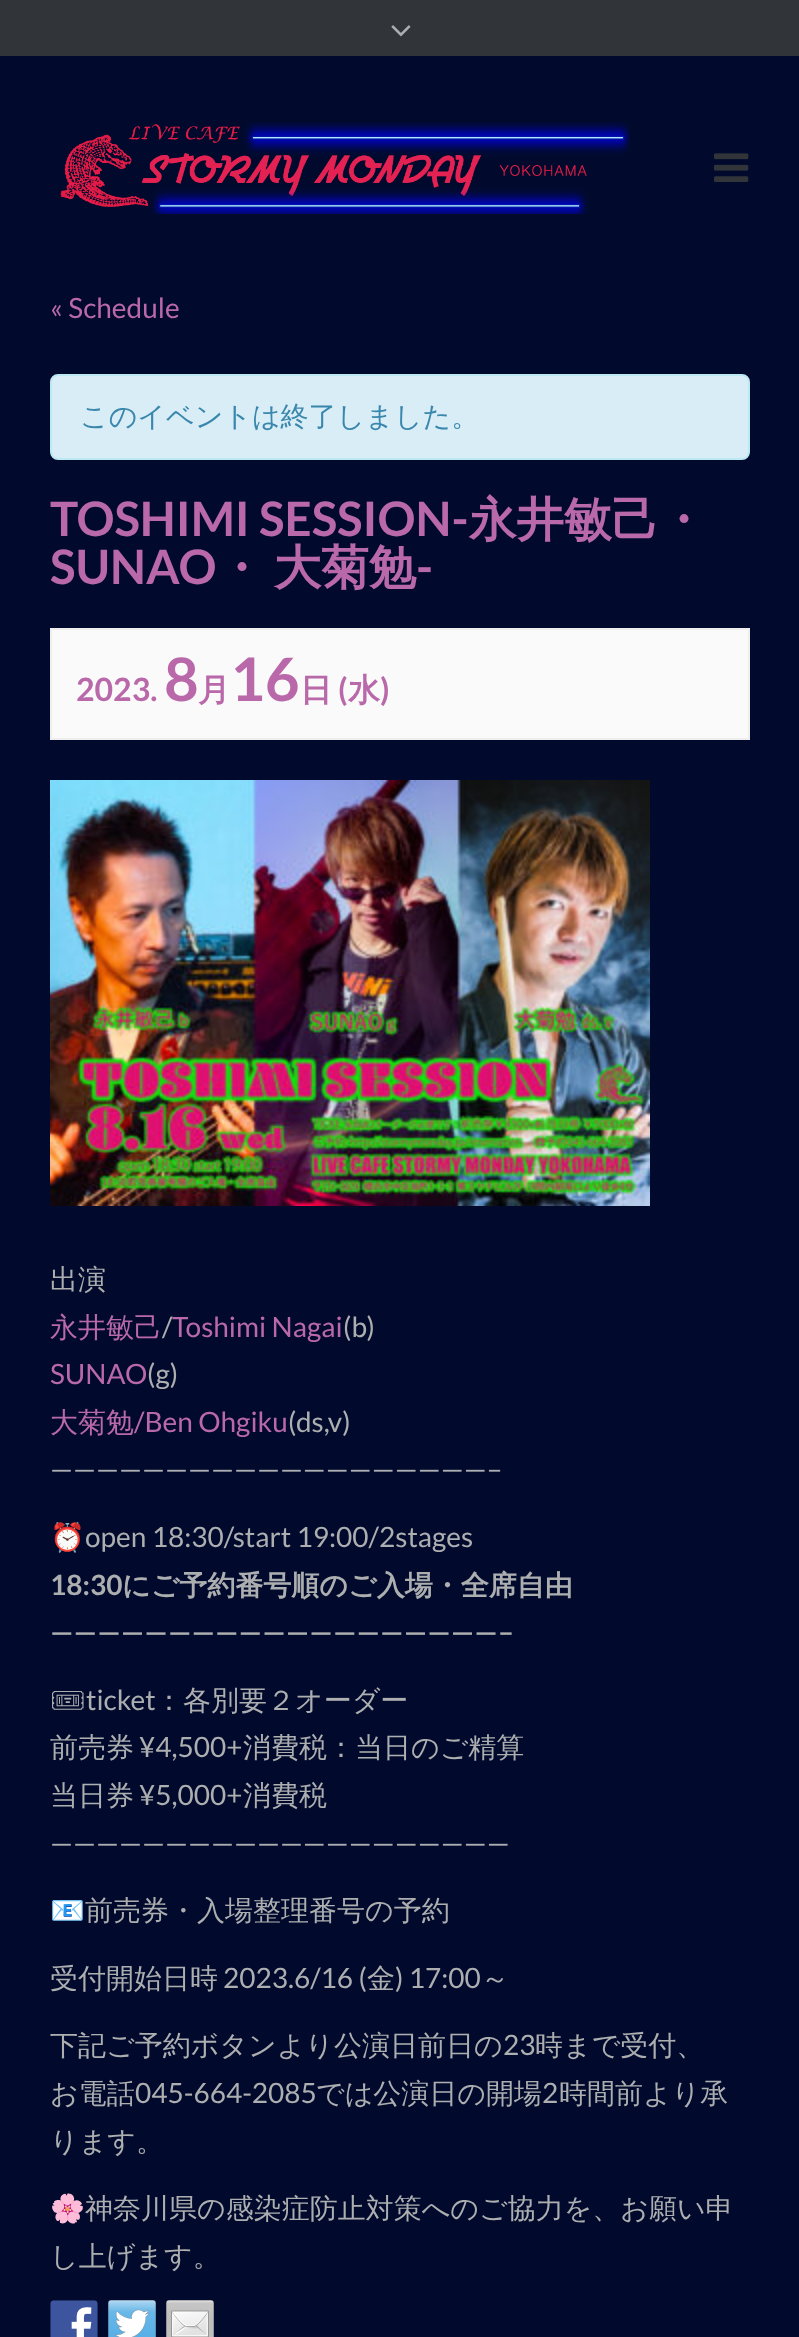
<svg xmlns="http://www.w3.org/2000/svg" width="799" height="2337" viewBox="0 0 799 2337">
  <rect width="100%" height="100%" fill="rgb(1,10,45)"/>
  <rect x="0" y="0" width="799" height="56" fill="rgb(49,53,57)"/>
  <image x="391" y="25" width="20" height="12" href="pic1.png"/>
  <image x="60" y="122" width="570" height="92" href="pic2.png"/>
  <image x="714" y="153" width="35" height="29" href="pic3.png"/>
  <text x="50" y="318" font-family="Lato" font-size="28" fill="rgb(185,104,170)">« Schedule</text>
  <rect x="51" y="375" width="698" height="84" rx="7" fill="rgb(217,237,247)" stroke="rgb(188,232,241)" stroke-width="2"/>
  <text x="80" y="426" font-family="WenQuanYi Zen Hei" font-size="28" font-weight="500" fill="rgb(58,135,173)">このイベントは終了しました。</text>
  <text x="50" y="536" font-family="Lato" font-size="47.5" font-weight="bold" fill="rgb(185,104,170)">TOSHIMI SESSION-</text>
  <text x="469" y="536" font-family="WenQuanYi Zen Hei" font-size="47.5" font-weight="bold" fill="rgb(185,104,170)">永井敏己・</text>
  <text x="50" y="584" font-family="Lato" font-size="47.5" font-weight="bold" fill="rgb(185,104,170)">SUNAO</text>
  <text x="217" y="584" word-spacing="-5" font-family="WenQuanYi Zen Hei" font-size="47.5" font-weight="bold" fill="rgb(185,104,170)">・ 大菊勉</text>
  <text x="416" y="584" font-family="Lato" font-size="47.5" font-weight="bold" fill="rgb(185,104,170)">-</text>
  <rect x="51" y="629" width="698" height="110" fill="rgb(250,250,250)" stroke="rgb(238,238,238)" stroke-width="2"/>
  <text x="76" y="701" font-family="Lato" font-size="32" font-weight="bold" fill="rgb(185,104,170)">2023.</text>
  <text x="164" y="701" font-family="Lato" font-size="60" font-weight="bold" fill="rgb(185,104,170)">8</text>
  <text x="198" y="701" font-family="WenQuanYi Zen Hei" font-size="32" font-weight="bold" fill="rgb(185,104,170)">月</text>
  <text x="230" y="701" font-family="Lato" font-size="60" font-weight="bold" fill="rgb(185,104,170)">16</text>
  <text x="300" y="701" font-family="WenQuanYi Zen Hei" font-size="32" font-weight="bold" fill="rgb(185,104,170)">日</text>
  <text x="338" y="701" font-family="Lato" font-size="32" font-weight="bold" fill="rgb(185,104,170)">(</text>
  <text x="348" y="701" font-family="WenQuanYi Zen Hei" font-size="32" font-weight="bold" fill="rgb(185,104,170)">水</text>
  <text x="380" y="701" font-family="Lato" font-size="32" font-weight="bold" fill="rgb(185,104,170)">)</text>
  <image x="50" y="780" width="600" height="426" href="pic4.png"/>
  <text x="50" y="1289" font-family="WenQuanYi Zen Hei" font-size="28" font-weight="500" fill="rgb(172,174,175)">出演</text>
  <text x="50" y="1337" font-family="WenQuanYi Zen Hei" font-size="28" font-weight="500" fill="rgb(185,104,170)">永井敏己</text>
  <text x="162" y="1337" font-family="Lato" font-size="28" fill="rgb(172,174,175)">/</text>
  <text x="172" y="1337" font-family="Lato" font-size="28" fill="rgb(185,104,170)">Toshimi Nagai</text>
  <text x="343" y="1337" font-family="Lato" font-size="28" fill="rgb(172,174,175)">(b)</text>
  <text x="50" y="1384" font-family="Lato" font-size="28" fill="rgb(185,104,170)">SUNAO</text>
  <text x="147" y="1384" font-family="Lato" font-size="28" fill="rgb(172,174,175)">(g)</text>
  <text x="50" y="1432" font-family="WenQuanYi Zen Hei" font-size="28" font-weight="500" fill="rgb(185,104,170)">大菊勉</text>
  <text x="134" y="1432" font-family="Lato" font-size="28" fill="rgb(185,104,170)">/Ben Ohgiku</text>
  <g font-family="Lato" font-size="28" fill="rgb(172,174,175)">
    <text x="288" y="1432">(ds,v)</text>
    <text x="50" y="1479">———————————————————–</text>
  </g>
  <text x="50" y="1547" font-family="Noto Color Emoji" font-size="28" fill="rgb(172,174,175)">⏰</text>
  <text x="85" y="1547" font-family="Lato" font-size="28" fill="rgb(172,174,175)">open 18:30/start 19:00/2stages</text>
  <text x="50" y="1595" font-family="Lato" font-size="28" font-weight="bold" fill="rgb(172,174,175)">18:30</text>
  <text x="122" y="1595" font-family="WenQuanYi Zen Hei" font-size="28" font-weight="bold" fill="rgb(172,174,175)">にご予約番号順のご入場・全席自由</text>
  <text x="50" y="1642" font-family="Lato" font-size="28" font-weight="bold" fill="rgb(172,174,175)">———————————————————–</text>
  <text x="50" y="1710" font-family="Noto Emoji" font-size="28" fill="rgb(172,174,175)">🎟</text>
  <text x="86" y="1710" font-family="Lato" font-size="28" fill="rgb(172,174,175)">ticket</text>
  <g font-family="WenQuanYi Zen Hei" font-size="28" font-weight="500" fill="rgb(172,174,175)">
    <text x="155" y="1710">：各別要２オーダー</text>
    <text x="50" y="1757">前売券</text>
  </g>
  <text x="139" y="1757" font-family="Lato" font-size="28" fill="rgb(172,174,175)">¥4,500+</text>
  <g font-family="WenQuanYi Zen Hei" font-size="28" font-weight="500" fill="rgb(172,174,175)">
    <text x="243" y="1757">消費税：当日のご精算</text>
    <text x="50" y="1805">当日券</text>
  </g>
  <text x="139" y="1805" font-family="Lato" font-size="28" fill="rgb(172,174,175)">¥5,000+</text>
  <text x="243" y="1805" font-family="WenQuanYi Zen Hei" font-size="28" font-weight="500" fill="rgb(172,174,175)">消費税</text>
  <text x="50" y="1853" font-family="Lato" font-size="28" fill="rgb(172,174,175)">————————————————————</text>
  <text x="50" y="1920" font-family="Noto Color Emoji" font-size="28" fill="rgb(172,174,175)">📧</text>
  <g font-family="WenQuanYi Zen Hei" font-size="28" font-weight="500" fill="rgb(172,174,175)">
    <text x="85" y="1920">前売券・入場整理番号の予約</text>
    <text x="50" y="1988">受付開始日時</text>
  </g>
  <text x="223" y="1988" font-family="Lato" font-size="28" fill="rgb(172,174,175)">2023.6/16 (</text>
  <text x="367" y="1988" font-family="WenQuanYi Zen Hei" font-size="28" font-weight="500" fill="rgb(172,174,175)">金</text>
  <text x="395" y="1988" font-family="Lato" font-size="28" fill="rgb(172,174,175)">) 17:00</text>
  <g font-family="WenQuanYi Zen Hei" font-size="28" font-weight="500" fill="rgb(172,174,175)">
    <text x="481" y="1988">～</text>
    <text x="50" y="2055">下記ご予約ボタンより公演日前日の</text>
  </g>
  <text x="503" y="2055" font-family="Lato" font-size="28" fill="rgb(172,174,175)">23</text>
  <g font-family="WenQuanYi Zen Hei" font-size="28" font-weight="500" fill="rgb(172,174,175)">
    <text x="535" y="2055">時まで受付、</text>
    <text x="50" y="2103">お電話</text>
  </g>
  <text x="135" y="2103" font-family="Lato" font-size="28" fill="rgb(172,174,175)">045-664-2085</text>
  <text x="316" y="2103" font-family="WenQuanYi Zen Hei" font-size="28" font-weight="500" fill="rgb(172,174,175)">では公演日の開場</text>
  <text x="542" y="2103" font-family="Lato" font-size="28" fill="rgb(172,174,175)">2</text>
  <g font-family="WenQuanYi Zen Hei" font-size="28" font-weight="500" fill="rgb(172,174,175)">
    <text x="559" y="2103">時間前より承</text>
    <text x="50" y="2151">ります。</text>
  </g>
  <text x="50" y="2218" font-family="Noto Color Emoji" font-size="28" fill="rgb(172,174,175)">🌸</text>
  <g font-family="WenQuanYi Zen Hei" font-size="28" font-weight="500" fill="rgb(172,174,175)">
    <text x="85" y="2218">神奈川県の感染症防止対策へのご協力を、お願い申</text>
    <text x="50" y="2266">し上げます。</text>
  </g>
  <image x="50" y="2300" width="48" height="37" href="pic5.png"/>
  <image x="108" y="2300" width="48" height="37" href="pic6.png"/>
  <image x="166" y="2300" width="48" height="37" href="pic7.png"/>
</svg>
